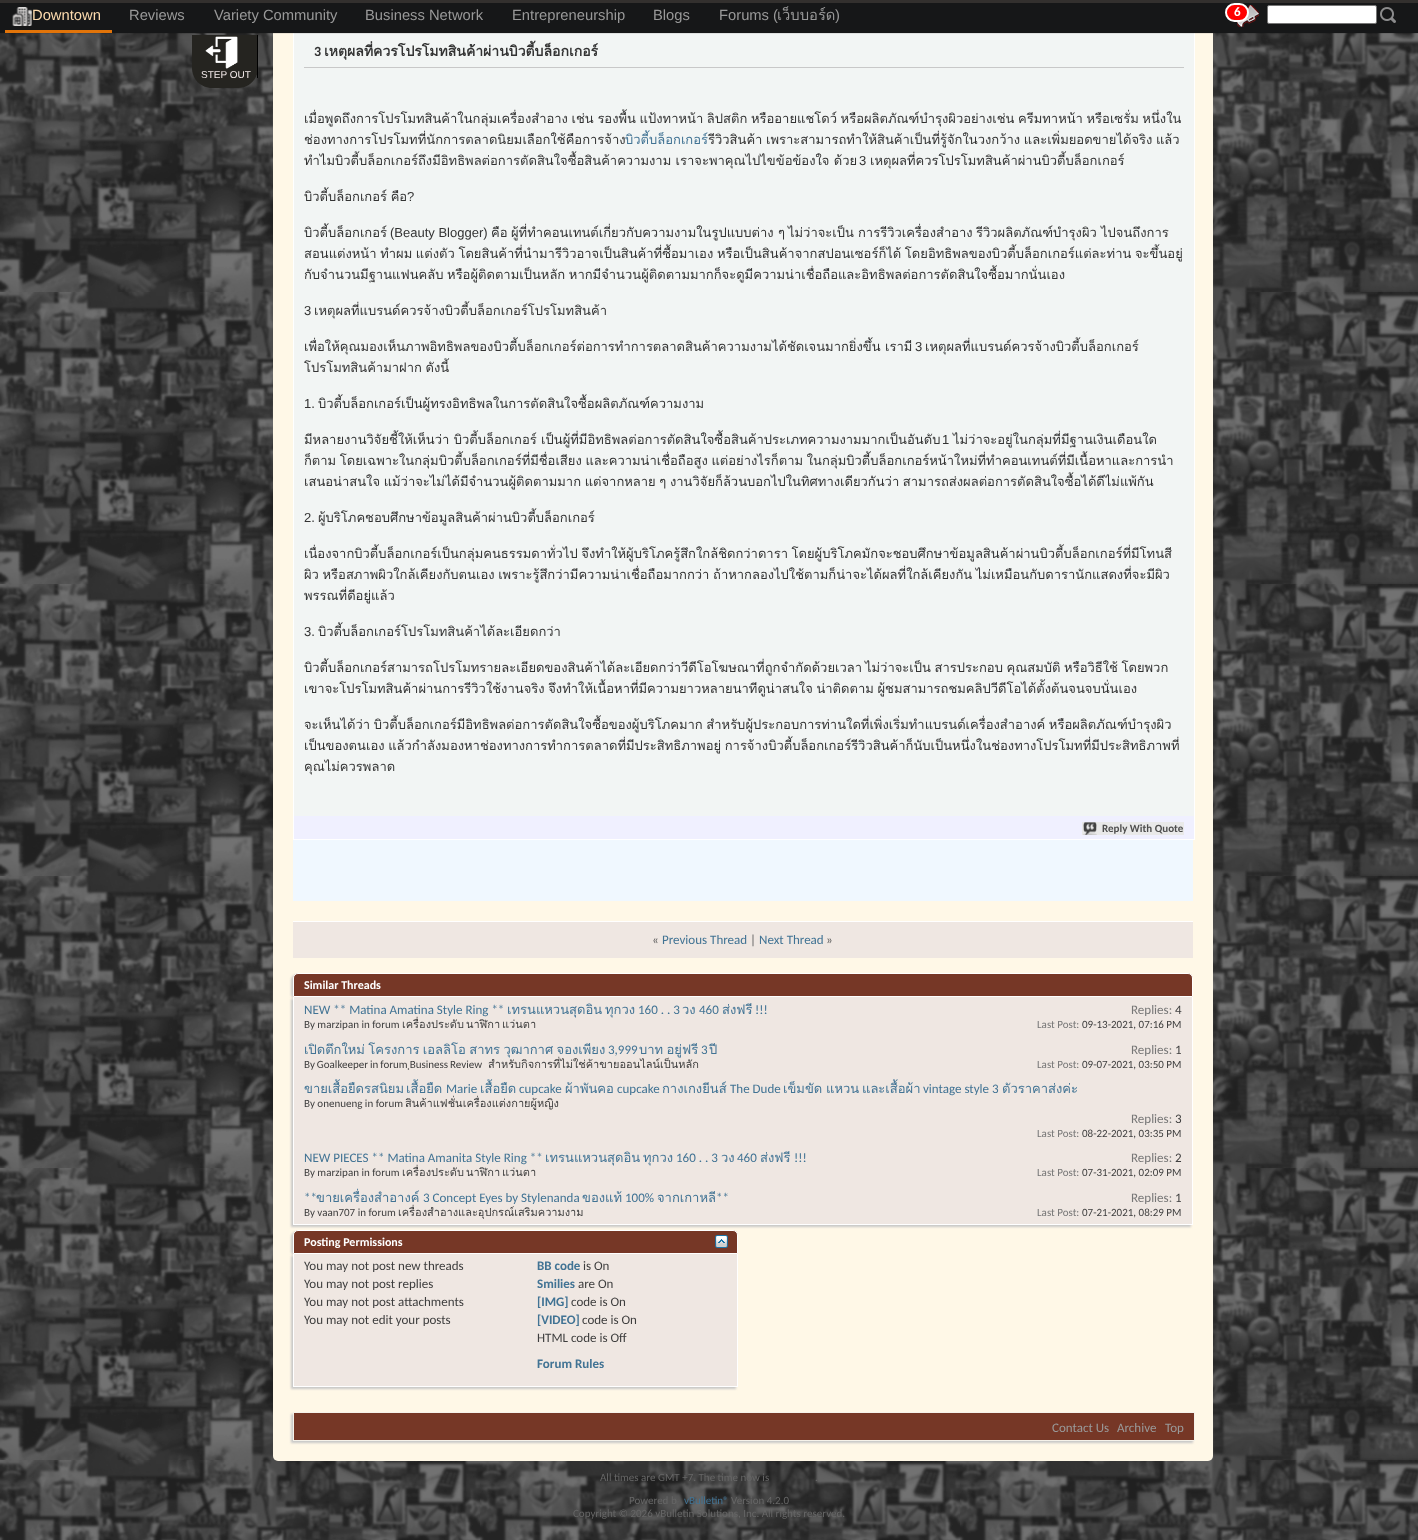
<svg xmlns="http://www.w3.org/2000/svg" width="1418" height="1540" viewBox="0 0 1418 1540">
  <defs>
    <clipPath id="clip1"><rect x="304" y="108" width="880" height="669"/></clipPath>
  </defs>
  <rect width="100%" height="100%" fill="rgb(255,255,255)"/>
  <image x="0" y="33" width="1418" height="1507" href="pic1.png"/>
  <rect x="273" y="-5" width="940" height="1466" rx="5" fill="rgb(255,248,231)"/>
  <rect x="293.5" y="-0.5" width="901" height="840" fill="none" stroke="rgb(255,255,255)"/>
  <rect x="294" y="33" width="900" height="783" fill="rgb(242,245,244)"/>
  <rect x="0" y="1" width="1418" height="31" fill="rgb(0,0,0)" filter="blur(1px)"/>
  <rect x="0" y="0" width="1418" height="3" fill="rgb(51,48,46)"/>
  <rect x="0" y="3" width="1418" height="30" fill="rgb(22,23,24)"/>
  <rect x="5" y="30" width="107" height="3" fill="rgb(226,116,9)"/>
  <image x="12" y="7" width="20" height="19" href="pic2.png"/>
  <text x="32" y="20" font-family="Liberation Sans" font-size="14.75" fill="rgb(253,219,174)">Downtown</text>
  <g font-family="Liberation Sans" font-size="14.75" fill="rgb(153,153,153)">
    <text x="129" y="20">Reviews</text>
    <text x="214" y="20">Variety Community</text>
    <text x="365" y="20">Business Network</text>
    <text x="512" y="20">Entrepreneurship</text>
    <text x="653" y="20">Blogs</text>
    <text x="719" y="20">Forums (</text>
  </g>
  <text x="777" y="20" font-family="Loma" font-size="14.75" fill="rgb(153,153,153)">เว็บบอร์ด</text>
  <text x="835" y="20" font-family="Liberation Sans" font-size="14.75" fill="rgb(153,153,153)">)</text>
  <image x="1237" y="5" width="22" height="22" href="pic3.png"/>
  <rect x="1226" y="4" width="22" height="17" rx="8.5" fill="rgb(255,0,0)" stroke="rgb(255,255,255)" stroke-width="2"/>
  <text x="1234" y="16" font-family="Carlito" font-size="13" font-weight="bold" fill="rgb(255,255,255)">6</text>
  <rect x="1267.5" y="5.5" width="109" height="18" rx="1.5" fill="rgb(255,255,255)" stroke="rgb(118,118,118)"/>
  <image x="1380" y="7" width="16" height="16" href="pic4.png"/>
  <path d="M192 35H258V68C258 79 249 88 238 88H212C201 88 192 79 192 68Z" fill="rgb(37,36,32)"/>
  <rect x="257" y="35" width="1" height="43" fill="rgb(0,0,0)"/>
  <image x="205" y="36" width="33" height="33" href="pic5.png"/>
  <text x="201" y="78" font-family="Liberation Sans" font-size="10" fill="rgb(244,235,235)">STEP OUT</text>
  <rect x="293" y="840" width="900" height="61" fill="rgb(240,248,255)"/>
  <rect x="304" y="67" width="880" height="1" fill="rgb(200,200,200)"/>
  <text x="314" y="56" font-family="Carlito" font-size="14" font-weight="bold" fill="rgb(51,51,51)">3</text>
  <text x="324" y="56" font-family="Loma" font-size="14" font-weight="bold" fill="rgb(51,51,51)">เหตุผลที่ควรโปรโมทสินค้าผ่านบิวตี้บล็อกเกอร์</text>
  <g clip-path="url(#clip1)">
    <g font-family="Loma" font-size="13" fill="rgb(51,51,51)">
      <text>
        <tspan x="304" y="123" word-spacing="-0.75">เมื่อพูดถึงการโปรโมทสินค้าในกลุ่มเครื่องสำอาง เช่น รองพื้น แป้งทาหน้า ลิปสติก หรืออายแชโดว์ หรือผลิตภัณฑ์บำรุงผิวอย่างเช่น ครีมทาหน้า หรือเซรั่ม หนึ่งใน</tspan>
        <tspan x="304" y="144">ช่องทางการโปรโมทที่นักการตลาดนิยมเลือกใช้คือการจ้าง</tspan>
      </text>
    </g>
  </g>
  <text x="625" y="144" font-family="Loma" font-size="13" fill="rgb(65,115,148)">บิวตี้บล็อกเกอร์</text>
  <text x="708" y="144" word-spacing="-0.75" font-family="Loma" font-size="13" fill="rgb(51,51,51)">รีวิวสินค้า เพราะสามารถทำให้สินค้าเป็นที่รู้จักในวงกว้าง และเพิ่มยอดขายได้จริง แล้ว</text>
  <g clip-path="url(#clip1)">
    <text x="304" y="165" font-family="Loma" font-size="13" fill="rgb(51,51,51)">ทำไมบิวตี้บล็อกเกอร์ถึงมีอิทธิพลต่อการตัดสินใจซื้อสินค้าความงาม เราจะพาคุณไปไขข้อข้องใจ ด้วย</text>
  </g>
  <text x="859" y="165" font-family="Liberation Sans" font-size="13" fill="rgb(51,51,51)">3</text>
  <text x="870" y="165" font-family="Loma" font-size="13" fill="rgb(51,51,51)">เหตุผลที่ควรโปรโมทสินค้าผ่านบิวตี้บล็อกเกอร์</text>
  <g clip-path="url(#clip1)">
    <text x="304" y="201" word-spacing="-0.75" font-family="Loma" font-size="13" fill="rgb(51,51,51)">บิวตี้บล็อกเกอร์ คือ</text>
  </g>
  <text x="407" y="201" font-family="Liberation Sans" font-size="13" fill="rgb(51,51,51)">?</text>
  <g clip-path="url(#clip1)">
    <text x="304" y="237" font-family="Loma" font-size="13" fill="rgb(51,51,51)">บิวตี้บล็อกเกอร์</text>
  </g>
  <text x="390" y="237" font-family="Liberation Sans" font-size="13" fill="rgb(51,51,51)">(Beauty Blogger)</text>
  <g font-family="Loma" font-size="13" fill="rgb(51,51,51)">
    <text x="491" y="237">คือ</text>
    <text x="511" y="237">ผู้ที่ทำคอนเทนต์เกี่ยวกับความงามในรูปแบบต่าง</text>
    <text x="778" y="237">ๆ</text>
    <text x="788" y="237">ไม่ว่าจะเป็น</text>
    <text x="858" y="237">การรีวิวเครื่องสำอาง</text>
    <text x="976" y="237">รีวิวผลิตภัณฑ์บำรุงผิว</text>
    <text x="1101" y="237">ไปจนถึงการ</text>
    <text x="304" y="258" word-spacing="-0.75">สอนแต่งหน้า ทำผม แต่งตัว โดยสินค้าที่นำมารีวิวอาจเป็นสินค้าที่ซื้อมาเอง หรือเป็นสินค้าจากสปอนเซอร์ก็ได้ โดยอิทธิพลของบิวตี้บล็อกเกอร์แต่ละท่าน จะขึ้นอยู่</text>
  </g>
  <g clip-path="url(#clip1)">
    <text x="304" y="279" word-spacing="-0.75" font-family="Loma" font-size="13" fill="rgb(51,51,51)">กับจำนวนมีฐานแฟนคลับ หรือผู้ติดตามเป็นหลัก หากมีจำนวนผู้ติดตามมากก็จะดูมีความน่าเชื่อถือและอิทธิพลต่อการตัดสินใจซื้อมากนั่นเอง</text>
  </g>
  <text x="304" y="315" font-family="Liberation Sans" font-size="13" fill="rgb(51,51,51)">3</text>
  <text x="314" y="315" font-family="Loma" font-size="13" fill="rgb(51,51,51)">เหตุผลที่แบรนด์ควรจ้างบิวตี้บล็อกเกอร์โปรโมทสินค้า</text>
  <g clip-path="url(#clip1)">
    <text x="304" y="351" font-family="Loma" font-size="13" fill="rgb(51,51,51)">เพื่อให้คุณมองเห็นภาพอิทธิพลของบิวตี้บล็อกเกอร์ต่อการทำการตลาดสินค้าความงามได้ชัดเจนมากยิ่งขึ้น เรามี</text>
  </g>
  <text x="915" y="351" font-family="Liberation Sans" font-size="13" fill="rgb(51,51,51)">3</text>
  <g font-family="Loma" font-size="13" fill="rgb(51,51,51)">
    <text x="925" y="351">เหตุผลที่แบรนด์ควรจ้างบิวตี้บล็อกเกอร์</text>
    <text x="304" y="372" word-spacing="-0.75">โปรโมทสินค้ามาฝาก ดังนี้</text>
  </g>
  <text x="304" y="408" font-family="Liberation Sans" font-size="13" fill="rgb(51,51,51)">1.</text>
  <text x="318" y="408" font-family="Loma" font-size="13" fill="rgb(51,51,51)">บิวตี้บล็อกเกอร์เป็นผู้ทรงอิทธิพลในการตัดสินใจซื้อผลิตภัณฑ์ความงาม</text>
  <g clip-path="url(#clip1)">
    <text x="304" y="444" font-family="Loma" font-size="13" fill="rgb(51,51,51)">มีหลายงานวิจัยชี้ให้เห็นว่า บิวตี้บล็อกเกอร์ เป็นผู้ที่มีอิทธิพลต่อการตัดสินใจซื้อสินค้าประเภทความงามมากเป็นอันดับ</text>
  </g>
  <text x="942" y="444" font-family="Liberation Sans" font-size="13" fill="rgb(51,51,51)">1</text>
  <text x="953" y="444" font-family="Loma" font-size="13" fill="rgb(51,51,51)">ไม่ว่าจะอยู่ในกลุ่มที่มีฐานเงินเดือนใด</text>
  <g clip-path="url(#clip1)">
    <text x="304" y="465" word-spacing="-0.75" font-family="Loma" font-size="13" fill="rgb(51,51,51)">ก็ตาม โดยเฉพาะในกลุ่มบิวตี้บล็อกเกอร์ที่มีชื่อเสียง และความน่าเชื่อถือสูง แต่อย่างไรก็ตาม ในกลุ่มบิวตี้บล็อกเกอร์หน้าใหม่ที่ทำคอนเทนต์ที่มีเนื้อหาและการนำ</text>
  </g>
  <text x="304" y="486" word-spacing="-0.75" font-family="Loma" font-size="13" fill="rgb(51,51,51)">เสนอน่าสนใจ แม้ว่าจะไม่ได้มีจำนวนผู้ติดตามมาก แต่จากหลาย ๆ งานวิจัยก็ล้วนบอกไปในทิศทางเดียวกันว่า สามารถส่งผลต่อการตัดสินใจซื้อได้ดีไม่แพ้กัน</text>
  <text x="304" y="522" font-family="Liberation Sans" font-size="13" fill="rgb(51,51,51)">2.</text>
  <text x="318" y="522" font-family="Loma" font-size="13" fill="rgb(51,51,51)">ผู้บริโภคชอบศึกษาข้อมูลสินค้าผ่านบิวตี้บล็อกเกอร์</text>
  <g clip-path="url(#clip1)">
    <g font-family="Loma" font-size="13" fill="rgb(51,51,51)">
      <text>
        <tspan x="304" y="558" word-spacing="-0.75">เนื่องจากบิวตี้บล็อกเกอร์เป็นกลุ่มคนธรรมดาทั่วไป จึงทำให้ผู้บริโภครู้สึกใกล้ชิดกว่าดารา โดยผู้บริโภคมักจะชอบศึกษาข้อมูลสินค้าผ่านบิวตี้บล็อกเกอร์ที่มีโทนสี</tspan>
        <tspan x="304" y="579" word-spacing="-0.75">ผิว หรือสภาพผิวใกล้เคียงกับตนเอง เพราะรู้สึกว่ามีความน่าเชื่อถือมากกว่า ถ้าหากลองไปใช้ตามก็น่าจะได้ผลที่ใกล้เคียงกัน ไม่เหมือนกับดารานักแสดงที่จะมีผิว</tspan>
      </text>
    </g>
  </g>
  <text x="304" y="600" font-family="Loma" font-size="13" fill="rgb(51,51,51)">พรรณที่ดีอยู่แล้ว</text>
  <text x="304" y="636" font-family="Liberation Sans" font-size="13" fill="rgb(51,51,51)">3.</text>
  <text x="318" y="636" font-family="Loma" font-size="13" fill="rgb(51,51,51)">บิวตี้บล็อกเกอร์โปรโมทสินค้าได้ละเอียดกว่า</text>
  <g clip-path="url(#clip1)">
    <text x="304" y="672" font-family="Loma" font-size="13" fill="rgb(51,51,51)">บิวตี้บล็อกเกอร์สามารถโปรโมทรายละเอียดของสินค้าได้ละเอียดกว่าวีดีโอโฆษณาที่ถูกจำกัดด้วยเวลา</text>
  </g>
  <g font-family="Loma" font-size="13" fill="rgb(51,51,51)">
    <text x="865" y="672" word-spacing="-0.75">ไม่ว่าจะเป็น สารประกอบ คุณสมบัติ หรือวิธีใช้ โดยพวก</text>
    <text x="304" y="693" word-spacing="-0.75">เขาจะโปรโมทสินค้าผ่านการรีวิวใช้งานจริง จึงทำให้เนื้อหาที่มีความยาวหลายนาทีดูน่าสนใจ น่าติดตาม ผู้ชมสามารถชมคลิปวีดีโอได้ตั้งต้นจนจบนั่นเอง</text>
    <text x="304" y="729" word-spacing="-0.75">จะเห็นได้ว่า บิวตี้บล็อกเกอร์มีอิทธิพลต่อการตัดสินใจซื้อของผู้บริโภคมาก สำหรับผู้ประกอบการท่านใดที่เพิ่งเริ่มทำแบรนด์เครื่องสำอางค์ หรือผลิตภัณฑ์บำรุงผิว</text>
  </g>
  <g clip-path="url(#clip1)">
    <g font-family="Loma" font-size="13" fill="rgb(51,51,51)">
      <text>
        <tspan x="304" y="750" word-spacing="-0.75">เป็นของตนเอง แล้วกำลังมองหาช่องทางการทำการตลาดที่มีประสิทธิภาพอยู่ การจ้างบิวตี้บล็อกเกอร์รีวิวสินค้าก็นับเป็นหนึ่งในช่องทางโปรโมทที่มีประสิทธิภาพที่</tspan>
        <tspan x="304" y="771">คุณไม่ควรพลาด</tspan>
      </text>
    </g>
  </g>
  <rect x="294" y="816" width="900" height="23" fill="rgb(240,240,255)"/>
  <rect x="1082" y="822" width="102" height="13" fill="rgb(233,233,233)"/>
  <image x="1083" y="822" width="14" height="13" href="pic6.png"/>
  <text x="1102" y="832" font-family="Carlito" font-size="11" font-weight="bold" fill="rgb(78,78,78)">Reply With Quote</text>
  <rect x="293" y="922" width="900" height="36" fill="rgb(239,231,226)"/>
  <rect x="293" y="921" width="900" height="1" fill="rgb(255,255,255)"/>
  <text x="652" y="944" font-family="Carlito" font-size="13" fill="rgb(93,93,93)">«</text>
  <text x="662" y="944" font-family="Carlito" font-size="13" fill="rgb(65,115,148)">Previous Thread</text>
  <text x="750" y="944" font-family="Carlito" font-size="13" fill="rgb(93,93,93)">|</text>
  <text x="759" y="944" font-family="Carlito" font-size="13" fill="rgb(65,115,148)">Next Thread</text>
  <text x="826" y="944" font-family="Carlito" font-size="13" fill="rgb(93,93,93)">»</text>
  <rect x="291" y="975" width="900" height="24" rx="5" fill="rgb(200,200,200)" filter="blur(1px)"/>
  <path d="M298 973.5H1188C1190.5 973.5 1192.5 975.5 1192.5 978V996.5H293.5V978C293.5 975.5 295.5 973.5 298 973.5Z" fill="rgb(118,55,38)" stroke="rgb(255,255,255)"/>
  <text x="304" y="989" font-family="Carlito" font-size="12" font-weight="bold" fill="rgb(255,255,255)">Similar Threads</text>
  <rect x="291" y="999" width="900" height="228" fill="rgb(200,200,200)" filter="blur(1px)"/>
  <rect x="294" y="997" width="898" height="227" fill="rgb(239,231,226)"/>
  <rect x="1192" y="997" width="1" height="228" fill="rgb(255,255,255)"/>
  <rect x="293" y="1224" width="900" height="1" fill="rgb(255,255,255)"/>
  <rect x="293" y="997" width="1" height="228" fill="rgb(255,255,255)"/>
  <text x="304" y="1014" font-family="Carlito" font-size="13" fill="rgb(65,115,148)">NEW ** Matina Amatina Style Ring **</text>
  <g font-family="Loma" font-size="13" fill="rgb(65,115,148)">
    <text x="507" y="1014">เทรนแหวนสุดอิน</text>
    <text x="605" y="1014">ทุกวง</text>
  </g>
  <text x="638" y="1014" font-family="Carlito" font-size="13" fill="rgb(65,115,148)">160 . . 3</text>
  <text x="682" y="1014" font-family="Loma" font-size="13" fill="rgb(65,115,148)">วง</text>
  <text x="699" y="1014" font-family="Carlito" font-size="13" fill="rgb(65,115,148)">460</text>
  <text x="722" y="1014" font-family="Loma" font-size="13" fill="rgb(65,115,148)">ส่งฟรี</text>
  <text x="755" y="1014" font-family="Carlito" font-size="13" fill="rgb(65,115,148)">!!!</text>
  <text x="304" y="1028" font-family="Carlito" font-size="11" fill="rgb(62,62,62)">By marzipan in forum</text>
  <g font-family="Loma" font-size="11" fill="rgb(62,62,62)">
    <text x="402" y="1028">เครื่องประดับ</text>
    <text x="466" y="1028">นาฬิกา</text>
    <text x="502" y="1028">แว่นตา</text>
  </g>
  <text x="1131" y="1014" font-family="Carlito" font-size="13" fill="rgb(119,119,119)">Replies:</text>
  <text x="1175" y="1014" font-family="Carlito" font-size="13" fill="rgb(62,62,62)">4</text>
  <text x="1037" y="1028" font-family="Carlito" font-size="11" fill="rgb(119,119,119)">Last Post:</text>
  <text x="1082" y="1028" font-family="Carlito" font-size="11" fill="rgb(62,62,62)">09-13-2021, 07:16 PM</text>
  <text x="304" y="1054" word-spacing="-1" font-family="Loma" font-size="13" fill="rgb(65,115,148)">เปิดตึกใหม่ โครงการ เอลลิโอ สาทร วุฒากาศ จองเพียง</text>
  <text x="608" y="1054" font-family="Carlito" font-size="13" fill="rgb(65,115,148)">3,999</text>
  <text x="639" y="1054" word-spacing="-1" font-family="Loma" font-size="13" fill="rgb(65,115,148)">บาท อยู่ฟรี</text>
  <text x="701" y="1054" font-family="Carlito" font-size="13" fill="rgb(65,115,148)">3</text>
  <text x="709" y="1054" font-family="Loma" font-size="13" fill="rgb(65,115,148)">ปี</text>
  <text x="304" y="1068" word-spacing="-0.5" font-family="Carlito" font-size="11" fill="rgb(62,62,62)">By Goalkeeper in forum ฺBusiness Review</text>
  <text x="488" y="1068" font-family="Loma" font-size="11" fill="rgb(62,62,62)">สำหรับกิจการที่ไม่ใช่ค้าขายออนไลน์เป็นหลัก</text>
  <text x="1131" y="1054" font-family="Carlito" font-size="13" fill="rgb(119,119,119)">Replies:</text>
  <text x="1175" y="1054" font-family="Carlito" font-size="13" fill="rgb(62,62,62)">1</text>
  <text x="1037" y="1068" font-family="Carlito" font-size="11" fill="rgb(119,119,119)">Last Post:</text>
  <text x="1082" y="1068" font-family="Carlito" font-size="11" fill="rgb(62,62,62)">09-07-2021, 03:50 PM</text>
  <g font-family="Loma" font-size="13" fill="rgb(65,115,148)">
    <text x="304" y="1093">ขายเสื้อยืดรสนิยม</text>
    <text x="406" y="1093">เสื้อยืด</text>
  </g>
  <text x="446" y="1093" font-family="Carlito" font-size="13" fill="rgb(65,115,148)">Marie</text>
  <text x="480" y="1093" font-family="Loma" font-size="13" fill="rgb(65,115,148)">เสื้อยืด</text>
  <text x="519" y="1093" font-family="Carlito" font-size="13" fill="rgb(65,115,148)">cupcake</text>
  <text x="565" y="1093" font-family="Loma" font-size="13" fill="rgb(65,115,148)">ผ้าพันคอ</text>
  <text x="617" y="1093" font-family="Carlito" font-size="13" fill="rgb(65,115,148)">cupcake</text>
  <text x="662" y="1093" font-family="Loma" font-size="13" fill="rgb(65,115,148)">กางเกงยีนส์</text>
  <text x="730" y="1093" font-family="Carlito" font-size="13" fill="rgb(65,115,148)">The Dude</text>
  <g font-family="Loma" font-size="13" fill="rgb(65,115,148)">
    <text x="783" y="1093">เข็มขัด</text>
    <text x="826" y="1093">แหวน</text>
    <text x="862" y="1093">และเสื้อผ้า</text>
  </g>
  <text x="923" y="1093" font-family="Carlito" font-size="13" fill="rgb(65,115,148)">vintage style 3</text>
  <text x="1002" y="1093" font-family="Loma" font-size="13" fill="rgb(65,115,148)">ตัวราคาส่งค่ะ</text>
  <text x="304" y="1107" font-family="Carlito" font-size="11" fill="rgb(62,62,62)">By onenueng in forum</text>
  <text x="405" y="1107" font-family="Loma" font-size="11" fill="rgb(62,62,62)">สินค้าแฟชั่นเครื่องแต่งกายผู้หญิง</text>
  <text x="1131" y="1123" font-family="Carlito" font-size="13" fill="rgb(119,119,119)">Replies:</text>
  <text x="1175" y="1123" font-family="Carlito" font-size="13" fill="rgb(62,62,62)">3</text>
  <text x="1037" y="1137" font-family="Carlito" font-size="11" fill="rgb(119,119,119)">Last Post:</text>
  <text x="1082" y="1137" font-family="Carlito" font-size="11" fill="rgb(62,62,62)">08-22-2021, 03:35 PM</text>
  <text x="304" y="1162" font-family="Carlito" font-size="13" fill="rgb(65,115,148)">NEW PIECES ** Matina Amanita Style Ring **</text>
  <g font-family="Loma" font-size="13" fill="rgb(65,115,148)">
    <text x="545" y="1162">เทรนแหวนสุดอิน</text>
    <text x="643" y="1162">ทุกวง</text>
  </g>
  <text x="676" y="1162" font-family="Carlito" font-size="13" fill="rgb(65,115,148)">160 . . 3</text>
  <text x="721" y="1162" font-family="Loma" font-size="13" fill="rgb(65,115,148)">วง</text>
  <text x="737" y="1162" font-family="Carlito" font-size="13" fill="rgb(65,115,148)">460</text>
  <text x="760" y="1162" font-family="Loma" font-size="13" fill="rgb(65,115,148)">ส่งฟรี</text>
  <text x="794" y="1162" font-family="Carlito" font-size="13" fill="rgb(65,115,148)">!!!</text>
  <text x="304" y="1176" font-family="Carlito" font-size="11" fill="rgb(62,62,62)">By marzipan in forum</text>
  <g font-family="Loma" font-size="11" fill="rgb(62,62,62)">
    <text x="402" y="1176">เครื่องประดับ</text>
    <text x="466" y="1176">นาฬิกา</text>
    <text x="502" y="1176">แว่นตา</text>
  </g>
  <text x="1131" y="1162" font-family="Carlito" font-size="13" fill="rgb(119,119,119)">Replies:</text>
  <text x="1175" y="1162" font-family="Carlito" font-size="13" fill="rgb(62,62,62)">2</text>
  <text x="1037" y="1176" font-family="Carlito" font-size="11" fill="rgb(119,119,119)">Last Post:</text>
  <text x="1082" y="1176" font-family="Carlito" font-size="11" fill="rgb(62,62,62)">07-31-2021, 02:09 PM</text>
  <text x="304" y="1202" font-family="Carlito" font-size="13" fill="rgb(65,115,148)">**</text>
  <text x="316" y="1202" font-family="Loma" font-size="13" fill="rgb(65,115,148)">ขายเครื่องสำอางค์</text>
  <text x="423" y="1202" font-family="Carlito" font-size="13" fill="rgb(65,115,148)">3 Concept Eyes by Stylenanda</text>
  <text x="582" y="1202" font-family="Loma" font-size="13" fill="rgb(65,115,148)">ของแท้</text>
  <text x="625" y="1202" font-family="Carlito" font-size="13" fill="rgb(65,115,148)">100%</text>
  <text x="657" y="1202" font-family="Loma" font-size="13" fill="rgb(65,115,148)">จากเกาหลี</text>
  <text x="716" y="1202" font-family="Carlito" font-size="13" fill="rgb(65,115,148)">**</text>
  <text x="304" y="1216" font-family="Carlito" font-size="11" fill="rgb(62,62,62)">By vaan707 in forum</text>
  <text x="398" y="1216" font-family="Loma" font-size="11" fill="rgb(62,62,62)">เครื่องสำอางและอุปกรณ์เสริมความงาม</text>
  <text x="1131" y="1202" font-family="Carlito" font-size="13" fill="rgb(119,119,119)">Replies:</text>
  <text x="1175" y="1202" font-family="Carlito" font-size="13" fill="rgb(62,62,62)">1</text>
  <text x="1037" y="1216" font-family="Carlito" font-size="11" fill="rgb(119,119,119)">Last Post:</text>
  <text x="1082" y="1216" font-family="Carlito" font-size="11" fill="rgb(62,62,62)">07-21-2021, 08:29 PM</text>
  <rect x="291" y="1232" width="445" height="24" rx="5" fill="rgb(200,200,200)" filter="blur(1px)"/>
  <path d="M298 1230.5H733C735.5 1230.5 737.5 1232.5 737.5 1235V1253.5H293.5V1235C293.5 1232.5 295.5 1230.5 298 1230.5Z" fill="rgb(118,55,38)" stroke="rgb(255,255,255)"/>
  <text x="304" y="1246" font-family="Carlito" font-size="12" font-weight="bold" fill="rgb(255,255,255)">Posting Permissions</text>
  <image x="715" y="1235" width="13" height="13" href="pic7.png"/>
  <rect x="291" y="1256" width="445" height="133" fill="rgb(200,200,200)" filter="blur(1px)"/>
  <rect x="294" y="1254" width="443" height="132" fill="rgb(239,231,226)"/>
  <rect x="737" y="1254" width="1" height="133" fill="rgb(255,255,255)"/>
  <rect x="293" y="1386" width="445" height="1" fill="rgb(255,255,255)"/>
  <rect x="293" y="1254" width="1" height="133" fill="rgb(255,255,255)"/>
  <g font-family="Carlito" font-size="13" fill="rgb(62,62,62)">
    <text>
      <tspan x="304" y="1270">You may not post new threads</tspan>
      <tspan x="304" y="1288">You may not post replies</tspan>
      <tspan x="304" y="1306">You may not post attachments</tspan>
      <tspan x="304" y="1324">You may not edit your posts</tspan>
    </text>
  </g>
  <text x="537" y="1270" font-family="Carlito" font-size="13" font-weight="bold" fill="rgb(65,115,148)">BB code</text>
  <text x="583" y="1270" font-family="Carlito" font-size="13" fill="rgb(62,62,62)">is On</text>
  <text x="537" y="1288" font-family="Carlito" font-size="13" font-weight="bold" fill="rgb(65,115,148)">Smilies</text>
  <text x="578" y="1288" font-family="Carlito" font-size="13" fill="rgb(62,62,62)">are On</text>
  <text x="537" y="1306" font-family="Carlito" font-size="13" font-weight="bold" fill="rgb(65,115,148)">[IMG]</text>
  <text x="571" y="1306" font-family="Carlito" font-size="13" fill="rgb(62,62,62)">code is On</text>
  <text x="537" y="1324" font-family="Carlito" font-size="13" font-weight="bold" fill="rgb(65,115,148)">[VIDEO]</text>
  <g font-family="Carlito" font-size="13" fill="rgb(62,62,62)">
    <text x="582" y="1324">code is On</text>
    <text x="537" y="1342">HTML code is Off</text>
  </g>
  <text x="537" y="1368" font-family="Carlito" font-size="13" font-weight="bold" fill="rgb(65,115,148)">Forum Rules</text>
  <rect x="291" y="1414" width="902" height="29" fill="rgb(200,200,200)" filter="blur(1px)"/>
  <rect x="293.5" y="1412.5" width="901" height="28" fill="rgb(118,55,38)" stroke="rgb(245,242,234)"/>
  <g font-family="Carlito" font-size="13" fill="rgb(153,153,153)">
    <text x="1052" y="1432">Contact Us</text>
    <text x="1117" y="1432">Archive</text>
    <text x="1165" y="1432">Top</text>
  </g>
  <g font-family="Carlito" font-size="11" fill="rgb(102,102,102)">
    <text x="600" y="1481">All times are GMT +7. The time now is</text>
    <text x="815" y="1481">.</text>
    <text x="629" y="1504">Powered b</text>
  </g>
  <text x="684" y="1504" font-family="Carlito" font-size="11" fill="rgb(65,115,148)">vBulletin®</text>
  <g font-family="Carlito" font-size="11" fill="rgb(102,102,102)">
    <text x="731" y="1504">Version 4.2.0</text>
    <text x="573" y="1517">Copyright © 2026 vBulletin Solutions, Inc. All rights reserved.</text>
  </g>
</svg>
